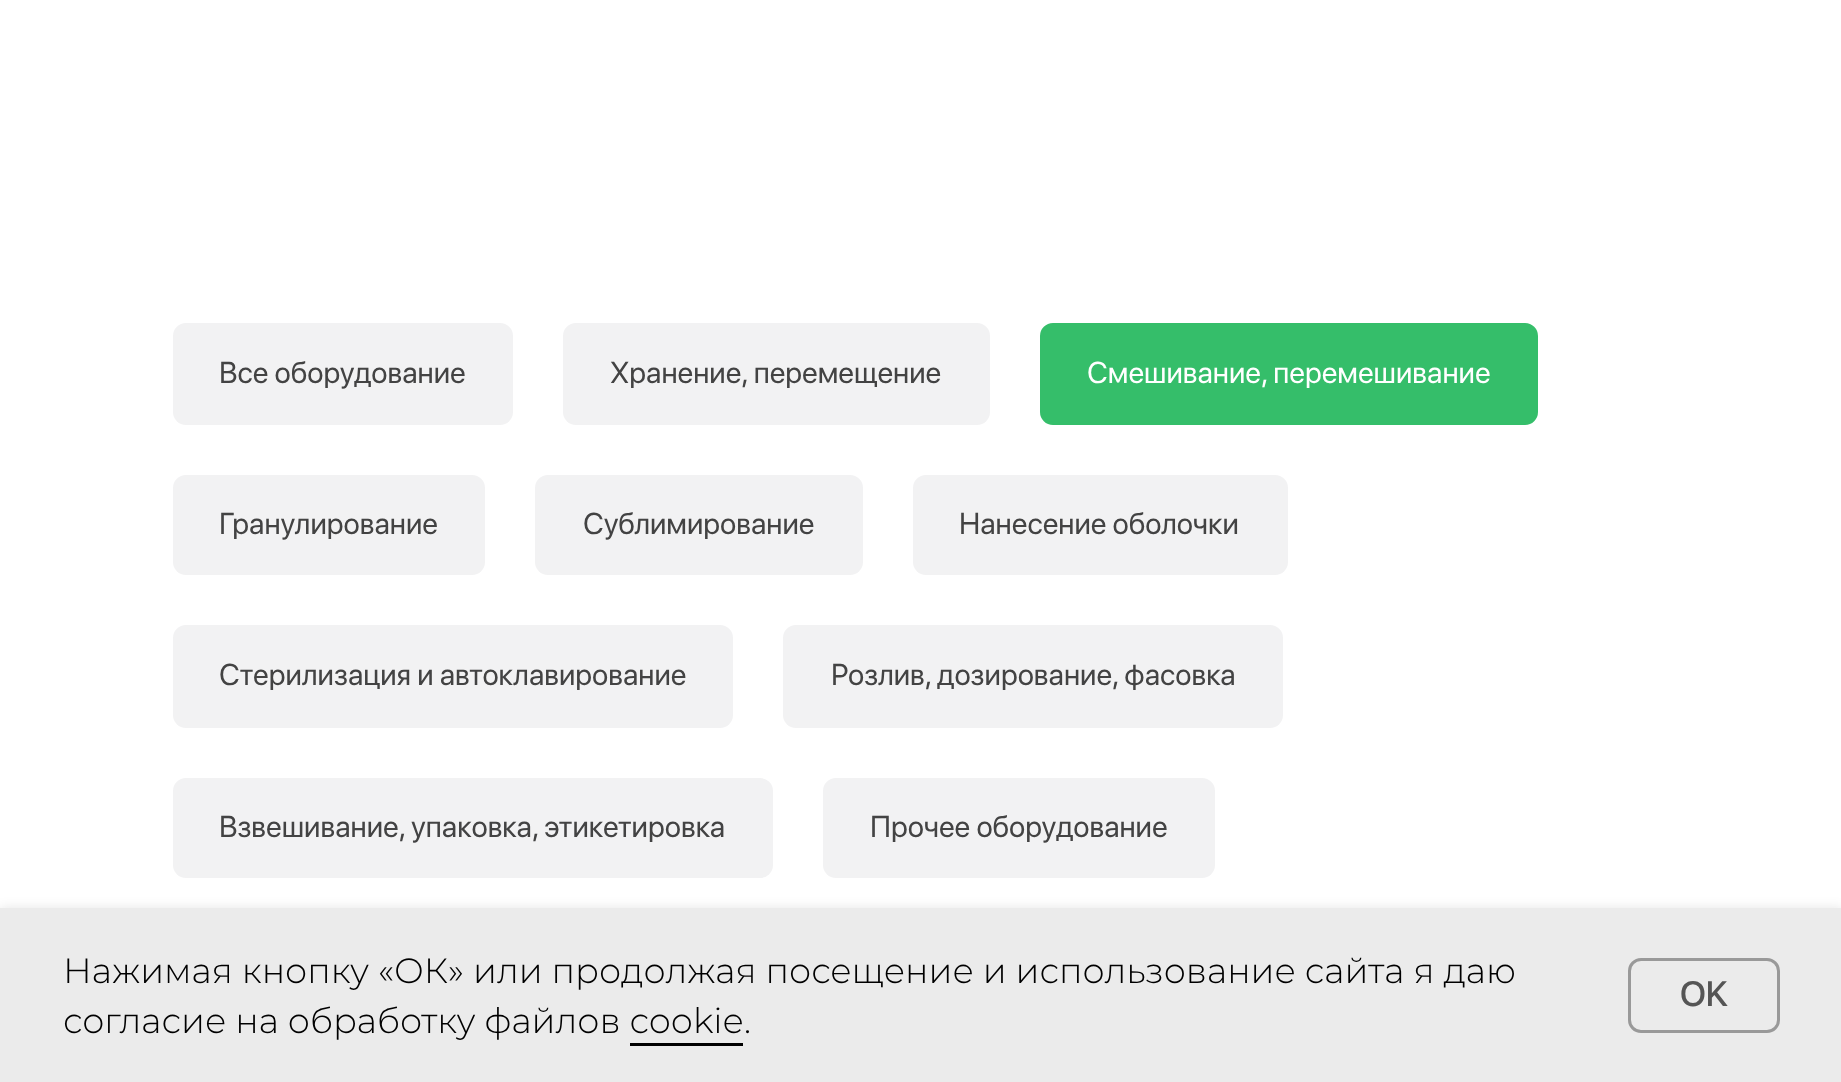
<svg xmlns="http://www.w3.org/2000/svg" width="1841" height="1082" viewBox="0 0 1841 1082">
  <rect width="100%" height="100%" fill="rgb(255,255,255)"/>
  <rect x="173" y="323" width="340" height="102" rx="13" fill="rgb(242,242,243)"/>
  <text x="219" y="383" font-family="SF Pro Display" font-size="30" fill="rgb(67,67,67)">Все оборудование</text>
  <rect x="563" y="323" width="427" height="102" rx="13" fill="rgb(242,242,243)"/>
  <text x="610" y="383" font-family="SF Pro Display" font-size="30" fill="rgb(67,67,67)">Хранение, перемещение</text>
  <rect x="1041.5" y="324.5" width="495" height="99" rx="11.5" fill="rgb(53,190,106)" stroke="rgb(53,190,106)" stroke-width="3"/>
  <text x="1087" y="383" font-family="SF Pro Display" font-size="30" fill="rgb(255,255,255)">Смешивание, перемешивание</text>
  <rect x="173" y="475" width="312" height="100" rx="13" fill="rgb(242,242,243)"/>
  <text x="219" y="534" font-family="SF Pro Display" font-size="30" fill="rgb(67,67,67)">Гранулирование</text>
  <rect x="535" y="475" width="328" height="100" rx="13" fill="rgb(242,242,243)"/>
  <text x="583" y="534" font-family="SF Pro Display" font-size="30" fill="rgb(67,67,67)">Сублимирование</text>
  <rect x="913" y="475" width="375" height="100" rx="13" fill="rgb(242,242,243)"/>
  <text x="959" y="534" font-family="SF Pro Display" font-size="30" fill="rgb(67,67,67)">Нанесение оболочки</text>
  <rect x="173" y="625" width="560" height="103" rx="13" fill="rgb(242,242,243)"/>
  <text x="219" y="685" font-family="SF Pro Display" font-size="30" fill="rgb(67,67,67)">Стерилизация и автоклавирование</text>
  <rect x="783" y="625" width="500" height="103" rx="13" fill="rgb(242,242,243)"/>
  <text x="831" y="685" font-family="SF Pro Display" font-size="30" fill="rgb(67,67,67)">Розлив, дозирование, фасовка</text>
  <rect x="173" y="778" width="600" height="100" rx="13" fill="rgb(242,242,243)"/>
  <text x="219" y="837" font-family="SF Pro Display" font-size="30" fill="rgb(67,67,67)">Взвешивание, упаковка, этикетировка</text>
  <rect x="823" y="778" width="392" height="100" rx="13" fill="rgb(242,242,243)"/>
  <text x="870" y="837" font-family="SF Pro Display" font-size="30" fill="rgb(67,67,67)">Прочее оборудование</text>
  <rect x="0" y="908" width="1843" height="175" fill="rgba(0,0,0,0.1)" filter="blur(6px)"/>
  <rect x="0" y="908" width="1841" height="174" fill="rgb(235,235,235)"/>
  <g font-family="Montserrat" font-size="35" font-weight="300" fill="rgb(0,0,0)">
    <text>
      <tspan x="63" y="983">Нажимая кнопку «ОК» или продолжая посещение и использование сайта я даю</tspan>
      <tspan x="63" y="1033">согласие на обработку файлов сооkіе.</tspan>
    </text>
  </g>
  <rect x="630" y="1043" width="113" height="3" fill="rgb(0,0,0)"/>
  <rect x="1629.5" y="959.5" width="149" height="72" rx="11.5" fill="none" stroke="rgb(153,153,153)" stroke-width="3"/>
  <text x="1680" y="1006" font-family="SF Pro Display" font-size="35" font-weight="500" fill="rgb(85,85,85)">OK</text>
</svg>
